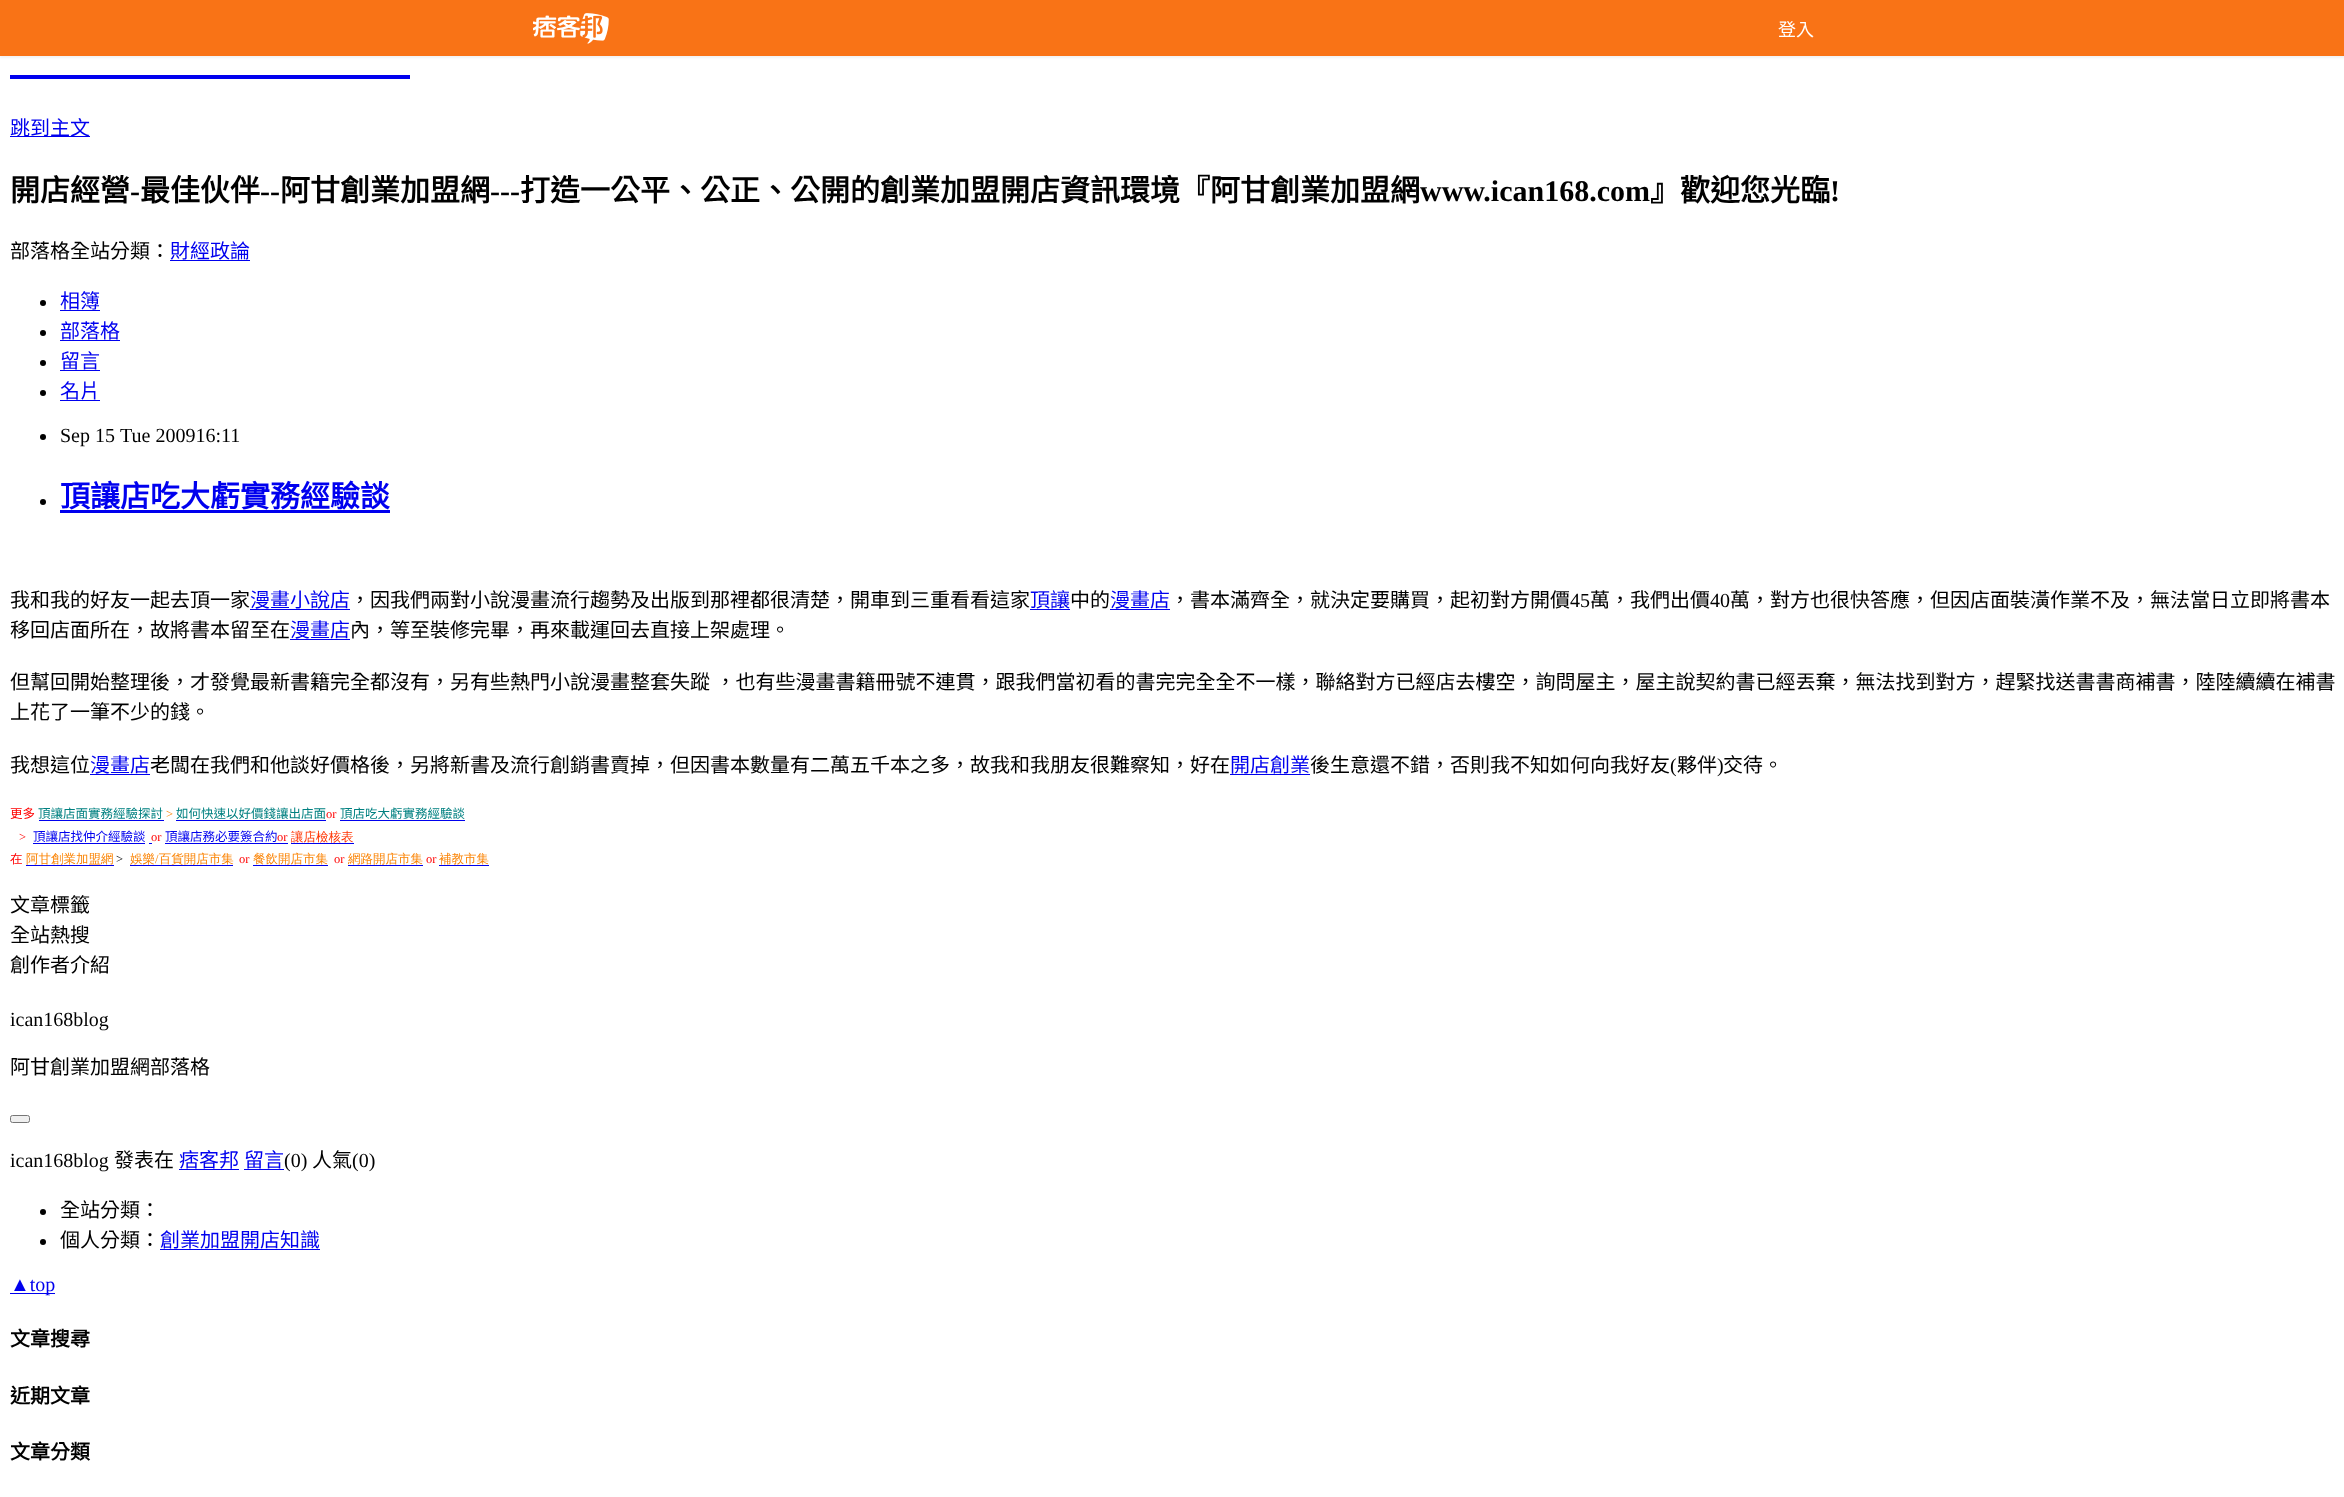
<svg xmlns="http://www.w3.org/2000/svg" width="2344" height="1497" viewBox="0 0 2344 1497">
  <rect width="100%" height="100%" fill="rgb(255,255,255)"/>
  <rect x="0" y="1" width="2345" height="57" fill="rgba(0,0,0,0.05)" filter="blur(1px)"/>
  <rect x="0" y="0" width="2344" height="56" fill="rgb(249,115,22)"/>
  <image x="533" y="13" width="76" height="31" href="pic1.png"/>
  <text x="1778" y="36" font-family="Noto Sans CJK TC" font-size="18" fill="rgb(255,255,255)">登入</text>
  <rect x="10" y="75" width="400" height="4" fill="rgb(0,0,238)"/>
  <rect x="10" y="136" width="80" height="1" fill="rgb(0,0,238)"/>
  <text x="10" y="135" font-family="Noto Sans CJK TC" font-size="20" fill="rgb(0,0,238)">跳到主文</text>
  <text x="10" y="201" font-family="Noto Sans CJK TC" font-size="30" font-weight="bold" fill="rgb(0,0,0)">開店經營</text>
  <text x="130" y="201" font-family="Liberation Serif" font-size="30" font-weight="bold" fill="rgb(0,0,0)">-</text>
  <text x="140" y="201" font-family="Noto Sans CJK TC" font-size="30" font-weight="bold" fill="rgb(0,0,0)">最佳伙伴</text>
  <text x="260" y="201" font-family="Liberation Serif" font-size="30" font-weight="bold" fill="rgb(0,0,0)">--</text>
  <text x="280" y="201" font-family="Noto Sans CJK TC" font-size="30" font-weight="bold" fill="rgb(0,0,0)">阿甘創業加盟網</text>
  <text x="490" y="201" font-family="Liberation Serif" font-size="30" font-weight="bold" fill="rgb(0,0,0)">---</text>
  <text x="520" y="201" font-family="Noto Sans CJK TC" font-size="30" font-weight="bold" fill="rgb(0,0,0)">打造一公平、公正、公開的創業加盟開店資訊環境『阿甘創業加盟網</text>
  <text x="1420" y="201" font-family="Liberation Serif" font-size="30" font-weight="bold" fill="rgb(0,0,0)">www.ican168.com</text>
  <text x="1650" y="201" font-family="Noto Sans CJK TC" font-size="30" font-weight="bold" fill="rgb(0,0,0)">』歡迎您光臨</text>
  <text x="1830" y="201" font-family="Liberation Serif" font-size="30" font-weight="bold" fill="rgb(0,0,0)">!</text>
  <text x="10" y="258" font-family="Noto Sans CJK TC" font-size="20" fill="rgb(0,0,0)">部落格全站分類：</text>
  <text x="170" y="258" font-family="Noto Sans CJK TC" font-size="20" fill="rgb(0,0,238)">財經政論</text>
  <rect x="170" y="260" width="80" height="1" fill="rgb(0,0,238)"/>
  <circle cx="43" cy="303" r="3" fill="rgb(0,0,0)"/>
  <text x="60" y="308" font-family="Noto Sans CJK TC" font-size="20" fill="rgb(0,0,238)">相簿</text>
  <rect x="60" y="310" width="40" height="1" fill="rgb(0,0,238)"/>
  <circle cx="43" cy="333" r="3" fill="rgb(0,0,0)"/>
  <text x="60" y="338" font-family="Noto Sans CJK TC" font-size="20" fill="rgb(0,0,238)">部落格</text>
  <rect x="60" y="340" width="60" height="1" fill="rgb(0,0,238)"/>
  <circle cx="43" cy="363" r="3" fill="rgb(0,0,0)"/>
  <text x="60" y="368" font-family="Noto Sans CJK TC" font-size="20" fill="rgb(0,0,238)">留言</text>
  <rect x="60" y="370" width="40" height="1" fill="rgb(0,0,238)"/>
  <circle cx="43" cy="393" r="3" fill="rgb(0,0,0)"/>
  <text x="60" y="398" font-family="Noto Sans CJK TC" font-size="20" fill="rgb(0,0,238)">名片</text>
  <rect x="60" y="400" width="40" height="1" fill="rgb(0,0,238)"/>
  <circle cx="43" cy="437" r="3" fill="rgb(0,0,0)"/>
  <g font-family="Liberation Serif" font-size="20" fill="rgb(0,0,0)">
    <text x="60" y="442">Sep 15</text>
    <text x="120" y="442">Tue 200916:11</text>
  </g>
  <circle cx="43" cy="502" r="3" fill="rgb(0,0,0)"/>
  <text x="60" y="507" font-family="Noto Sans CJK TC" font-size="30" font-weight="bold" fill="rgb(0,0,238)">頂讓店吃大虧實務經驗談</text>
  <rect x="60" y="510" width="330" height="3" fill="rgb(0,0,238)"/>
  <text x="10" y="607" font-family="Noto Sans CJK TC" font-size="20" fill="rgb(0,0,0)">我和我的好友一起去頂一家</text>
  <text x="250" y="607" font-family="Noto Sans CJK TC" font-size="20" fill="rgb(0,0,238)">漫畫小說店</text>
  <rect x="250" y="609" width="100" height="1" fill="rgb(0,0,238)"/>
  <text x="350" y="607" font-family="Noto Sans CJK TC" font-size="20" fill="rgb(0,0,0)">，因我們兩對小說漫畫流行趨勢及出版到那裡都很清楚，開車到三重看看這家</text>
  <text x="1030" y="607" font-family="Noto Sans CJK TC" font-size="20" fill="rgb(0,0,238)">頂讓</text>
  <rect x="1030" y="609" width="40" height="1" fill="rgb(0,0,238)"/>
  <text x="1070" y="607" font-family="Noto Sans CJK TC" font-size="20" fill="rgb(0,0,0)">中的</text>
  <text x="1110" y="607" font-family="Noto Sans CJK TC" font-size="20" fill="rgb(0,0,238)">漫畫店</text>
  <rect x="1110" y="609" width="60" height="1" fill="rgb(0,0,238)"/>
  <text x="1170" y="607" font-family="Noto Sans CJK TC" font-size="20" fill="rgb(0,0,0)">，書本滿齊全，就決定要購買，起初對方開價</text>
  <text x="1570" y="607" font-family="Liberation Serif" font-size="20" fill="rgb(0,0,0)">45</text>
  <text x="1590" y="607" font-family="Noto Sans CJK TC" font-size="20" fill="rgb(0,0,0)">萬，我們出價</text>
  <text x="1710" y="607" font-family="Liberation Serif" font-size="20" fill="rgb(0,0,0)">40</text>
  <g font-family="Noto Sans CJK TC" font-size="20" fill="rgb(0,0,0)">
    <text x="1730" y="607">萬，對方也很快答應，但因店面裝潢作業不及，無法當日立即將書本</text>
    <text x="10" y="637">移回店面所在，故將書本留至在</text>
  </g>
  <text x="290" y="637" font-family="Noto Sans CJK TC" font-size="20" fill="rgb(0,0,238)">漫畫店</text>
  <rect x="290" y="639" width="60" height="1" fill="rgb(0,0,238)"/>
  <g font-family="Noto Sans CJK TC" font-size="20" fill="rgb(0,0,0)">
    <text x="350" y="637">內，等至裝修完畢，再來載運回去直接上架處理。</text>
    <text>
      <tspan x="10" y="689" word-spacing="1">但幫回開始整理後，才發覺最新書籍完全都沒有，另有些熱門小說漫畫整套失蹤 ，也有些漫畫書籍冊號不連貫，跟我們當初看的書完完全全不一樣，聯絡對方已經店去樓空，詢問屋主，屋主說契約書已經丟棄，無法找到對方，趕緊找送書書商補書，陸陸續續在補書</tspan>
      <tspan x="10" y="719">上花了一筆不少的錢。</tspan>
    </text>
    <text x="10" y="772">我想這位</text>
  </g>
  <text x="90" y="772" font-family="Noto Sans CJK TC" font-size="20" fill="rgb(0,0,238)">漫畫店</text>
  <rect x="90" y="774" width="60" height="1" fill="rgb(0,0,238)"/>
  <text x="150" y="772" font-family="Noto Sans CJK TC" font-size="20" fill="rgb(0,0,0)">老闆在我們和他談好價格後，另將新書及流行創銷書賣掉，但因書本數量有二萬五千本之多，故我和我朋友很難察知，好在</text>
  <text x="1230" y="772" font-family="Noto Sans CJK TC" font-size="20" fill="rgb(0,0,238)">開店創業</text>
  <rect x="1230" y="774" width="80" height="1" fill="rgb(0,0,238)"/>
  <text x="1310" y="772" font-family="Noto Sans CJK TC" font-size="20" fill="rgb(0,0,0)">後生意還不錯，否則我不知如何向我好友</text>
  <text x="1670" y="772" font-family="Liberation Serif" font-size="20" fill="rgb(0,0,0)">(</text>
  <text x="1677" y="772" font-family="Noto Sans CJK TC" font-size="20" fill="rgb(0,0,0)">夥伴</text>
  <text x="1717" y="772" font-family="Liberation Serif" font-size="20" fill="rgb(0,0,0)">)</text>
  <text x="1723" y="772" font-family="Noto Sans CJK TC" font-size="20" fill="rgb(0,0,0)">交待。</text>
  <text x="10" y="818" font-family="Noto Sans CJK TC" font-size="12.5" fill="rgb(255,0,0)">更多</text>
  <text x="38" y="818" font-family="Noto Sans CJK TC" font-size="12.5" fill="rgb(0,128,128)">頂讓店面實務經驗探討</text>
  <rect x="39" y="820" width="125" height="1" fill="rgb(0,0,238)"/>
  <text x="166" y="818" font-family="Liberation Serif" font-size="12.5" fill="rgb(251,131,3)">&gt;</text>
  <text x="176" y="818" font-family="Noto Sans CJK TC" font-size="12.5" fill="rgb(0,128,128)">如何快速以好價錢讓出店面</text>
  <rect x="176" y="820" width="150" height="1" fill="rgb(0,0,238)"/>
  <text x="326" y="818" font-family="Liberation Serif" font-size="12.5" fill="rgb(255,0,0)">or</text>
  <text x="340" y="818" font-family="Noto Sans CJK TC" font-size="12.5" fill="rgb(0,128,128)">頂店吃大虧實務經驗談</text>
  <rect x="340" y="820" width="125" height="1" fill="rgb(0,0,238)"/>
  <text x="19" y="841" font-family="Liberation Serif" font-size="12.5" fill="rgb(255,0,0)">&gt;</text>
  <text x="33" y="841" font-family="Noto Sans CJK TC" font-size="12.5" fill="rgb(0,0,238)">頂讓店找仲介經驗談</text>
  <rect x="33" y="843" width="112" height="1" fill="rgb(0,0,238)"/>
  <text x="151" y="841" font-family="Liberation Serif" font-size="12.5" fill="rgb(255,0,0)">or</text>
  <rect x="149" y="843" width="3" height="1" fill="rgb(0,0,238)"/>
  <text x="165" y="841" font-family="Noto Sans CJK TC" font-size="12.5" fill="rgb(0,0,238)">頂讓店務必要簽合約</text>
  <text x="277" y="841" font-family="Liberation Serif" font-size="12.5" fill="rgb(255,0,0)">or</text>
  <rect x="165" y="843" width="123" height="1" fill="rgb(0,0,238)"/>
  <rect x="291" y="843" width="63" height="1" fill="rgb(0,0,238)"/>
  <text x="291" y="841" font-family="WenQuanYi Zen Hei" font-size="12.5" font-weight="500" fill="rgb(255,51,0)">讓店檢核表</text>
  <text x="10" y="863" font-family="WenQuanYi Zen Hei" font-size="12.5" font-weight="500" fill="rgb(255,0,0)">在</text>
  <text x="26" y="863" font-family="WenQuanYi Zen Hei" font-size="12.5" font-weight="500" fill="rgb(251,131,3)">阿甘創業加盟網</text>
  <rect x="26" y="865" width="88" height="1" fill="rgb(0,0,238)"/>
  <rect x="130" y="865" width="103" height="1" fill="rgb(0,0,238)"/>
  <g font-family="WenQuanYi Zen Hei" font-size="12.5" font-weight="500" fill="rgb(251,131,3)">
    <text x="130" y="863">娛樂 百貨開店市集</text>
    <text x="253" y="863">餐飲開店市集</text>
    <text x="348" y="863">網路開店市集</text>
    <text x="439" y="863">補教市集</text>
  </g>
  <text x="116" y="863" font-family="Liberation Serif" font-size="12.5" fill="rgb(0,0,0)">&gt;</text>
  <text x="155" y="863" font-family="Liberation Serif" font-size="12.5" fill="rgb(251,131,3)">/</text>
  <text x="239" y="863" font-family="Liberation Serif" font-size="12.5" fill="rgb(255,0,0)">or</text>
  <rect x="253" y="865" width="75" height="1" fill="rgb(0,0,238)"/>
  <text x="334" y="863" font-family="Liberation Serif" font-size="12.5" fill="rgb(255,0,0)">or</text>
  <rect x="348" y="865" width="75" height="1" fill="rgb(0,0,238)"/>
  <text x="426" y="863" font-family="Liberation Serif" font-size="12.5" fill="rgb(255,0,0)">or</text>
  <rect x="439" y="865" width="50" height="1" fill="rgb(0,0,238)"/>
  <g font-family="Noto Sans CJK TC" font-size="20" fill="rgb(0,0,0)">
    <text>
      <tspan x="10" y="912">文章標籤</tspan>
      <tspan x="10" y="942">全站熱搜</tspan>
      <tspan x="10" y="972">創作者介紹</tspan>
    </text>
  </g>
  <text x="10" y="1026" font-family="Liberation Serif" font-size="20" fill="rgb(0,0,0)">ican168blog</text>
  <text x="10" y="1074" font-family="Noto Sans CJK TC" font-size="20" fill="rgb(0,0,0)">阿甘創業加盟網部落格</text>
  <rect x="10.5" y="1115.5" width="19" height="7" rx="2" fill="rgb(239,239,239)" stroke="rgb(118,118,118)"/>
  <text x="10" y="1167" font-family="Liberation Serif" font-size="20" fill="rgb(0,0,0)">ican168blog</text>
  <text x="114" y="1167" font-family="Noto Sans CJK TC" font-size="20" fill="rgb(0,0,0)">發表在</text>
  <text x="179" y="1167" font-family="Noto Sans CJK TC" font-size="20" fill="rgb(0,0,238)">痞客邦</text>
  <rect x="179" y="1169" width="60" height="1" fill="rgb(0,0,238)"/>
  <text x="244" y="1167" font-family="Noto Sans CJK TC" font-size="20" fill="rgb(0,0,238)">留言</text>
  <rect x="244" y="1169" width="40" height="1" fill="rgb(0,0,238)"/>
  <text x="284" y="1167" font-family="Liberation Serif" font-size="20" fill="rgb(0,0,0)">(0)</text>
  <text x="312" y="1167" font-family="Noto Sans CJK TC" font-size="20" fill="rgb(0,0,0)">人氣</text>
  <text x="352" y="1167" font-family="Liberation Serif" font-size="20" fill="rgb(0,0,0)">(0)</text>
  <circle cx="43" cy="1212" r="3" fill="rgb(0,0,0)"/>
  <text x="60" y="1217" font-family="Noto Sans CJK TC" font-size="20" fill="rgb(0,0,0)">全站分類：</text>
  <circle cx="43" cy="1242" r="3" fill="rgb(0,0,0)"/>
  <text x="60" y="1247" font-family="Noto Sans CJK TC" font-size="20" fill="rgb(0,0,0)">個人分類：</text>
  <text x="160" y="1247" font-family="Noto Sans CJK TC" font-size="20" fill="rgb(0,0,238)">創業加盟開店知識</text>
  <rect x="160" y="1249" width="160" height="1" fill="rgb(0,0,238)"/>
  <rect x="10" y="1293" width="45" height="1" fill="rgb(0,0,238)"/>
  <text x="10" y="1291" font-family="Liberation Serif" font-size="20" fill="rgb(0,0,238)">▲top</text>
  <g font-family="Noto Sans CJK TC" font-size="20" font-weight="bold" fill="rgb(0,0,0)">
    <text x="10" y="1346">文章搜尋</text>
    <text x="10" y="1403">近期文章</text>
    <text x="10" y="1459">文章分類</text>
  </g>
</svg>
